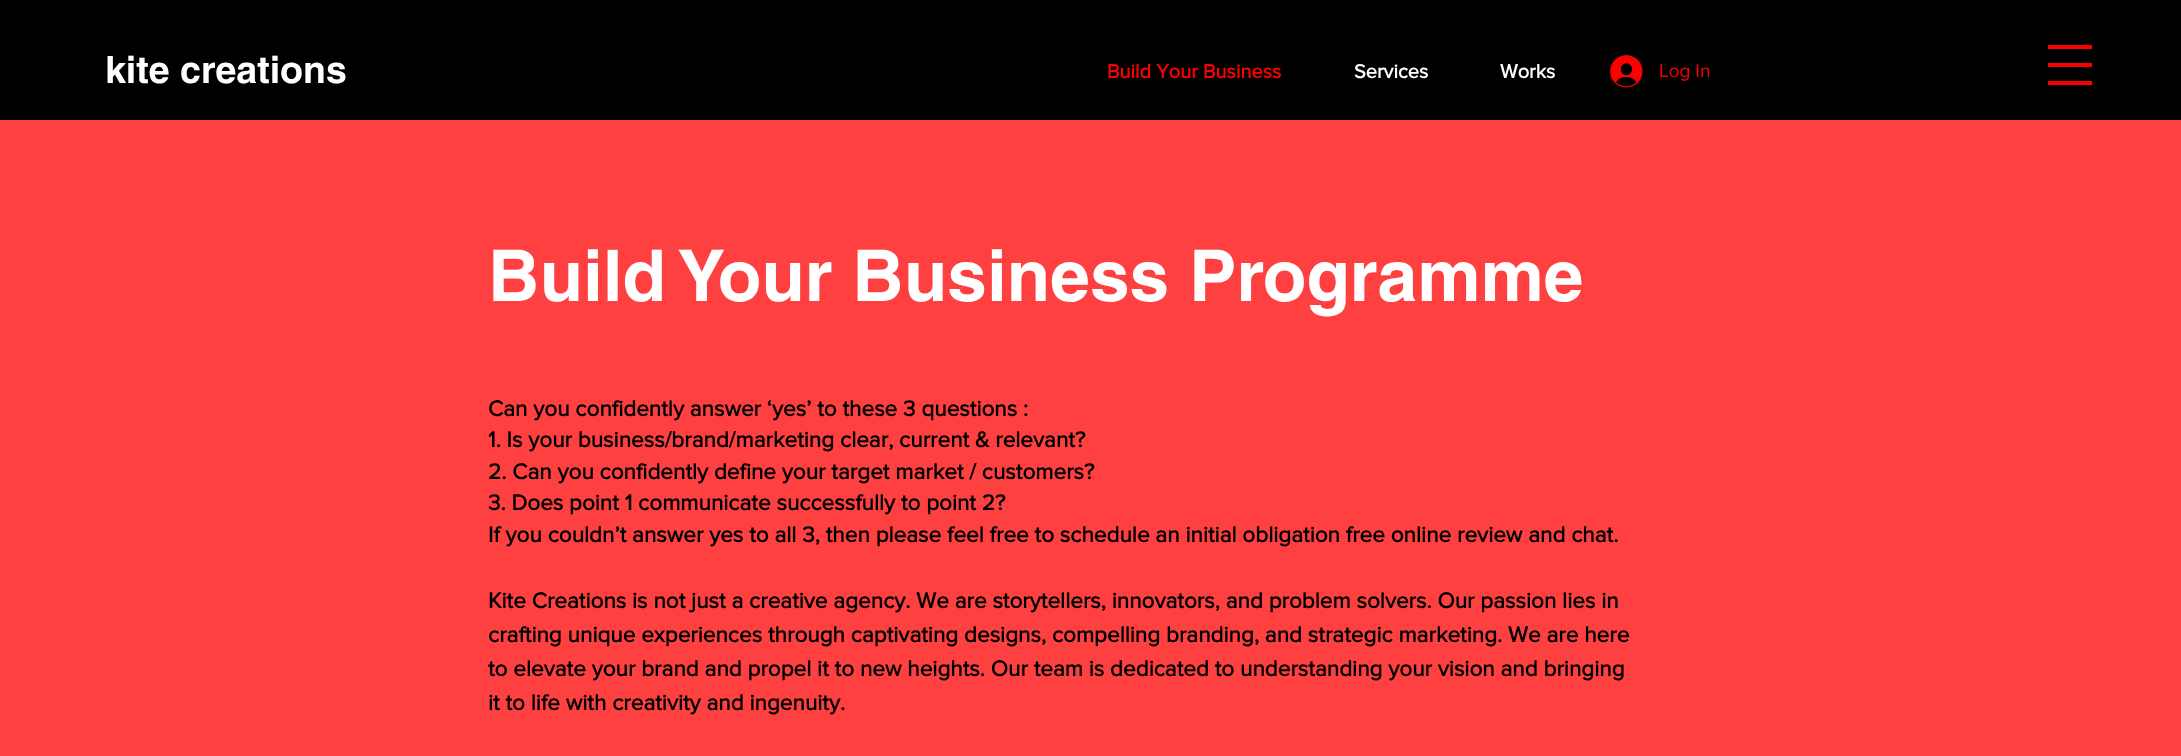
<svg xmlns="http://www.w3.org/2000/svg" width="2181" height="756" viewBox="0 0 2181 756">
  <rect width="100%" height="100%" fill="rgb(0,0,0)"/>
  <text x="105" y="83" font-family="helvetica" font-size="37.5" font-weight="bold" fill="rgb(255,255,255)">kite creations</text>
  <text x="1107" y="78" font-family="'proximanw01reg'" font-size="20" font-weight="bold" fill="rgb(252,0,0)">Build Your Business</text>
  <g font-family="'proximanw01reg'" font-size="20" font-weight="bold" fill="rgb(255,255,255)">
    <text x="1354" y="78">Services</text>
    <text x="1500" y="78">Works</text>
  </g>
  <image x="1610" y="55" width="33" height="33" href="pic1.png"/>
  <text x="1659" y="77" font-family="'proximanw01reg'" font-size="19" fill="rgb(252,0,0)">Log In</text>
  <rect x="2048" y="45" width="44" height="4" fill="rgb(252,0,0)"/>
  <rect x="2048" y="63" width="44" height="4" fill="rgb(252,0,0)"/>
  <rect x="2048" y="81" width="44" height="4" fill="rgb(252,0,0)"/>
  <rect x="0" y="120" width="2181" height="636" fill="rgb(255,64,64)"/>
  <text x="488" y="301" font-family="helvetica" font-size="71.25" font-weight="bold" fill="rgb(255,255,255)">Build Your Business Programme</text>
  <g font-family="'proximanw01reg'" font-size="22.5" font-weight="bold" fill="rgb(0,0,0)">
    <text>
      <tspan x="488" y="416">Can you confidently answer ‘yes’ to these 3 questions :</tspan>
      <tspan x="488" y="447">1. Is your business/brand/marketing clear, current &amp; relevant?</tspan>
      <tspan x="488" y="479">2. Can you confidently define your target market / customers?</tspan>
      <tspan x="488" y="510">3. Does point 1 communicate successfully to point 2?</tspan>
      <tspan x="488" y="542">If you couldn’t answer yes to all 3, then please feel free to schedule an initial obligation free online review and chat.</tspan>
    </text>
    <text>
      <tspan x="488" y="608">Kite Creations is not just a creative agency. We are storytellers, innovators, and problem solvers. Our passion lies in</tspan>
      <tspan x="488" y="642">crafting unique experiences through captivating designs, compelling branding, and strategic marketing. We are here</tspan>
      <tspan x="488" y="676">to elevate your brand and propel it to new heights. Our team is dedicated to understanding your vision and bringing</tspan>
      <tspan x="488" y="710">it to life with creativity and ingenuity.</tspan>
    </text>
  </g>
</svg>
